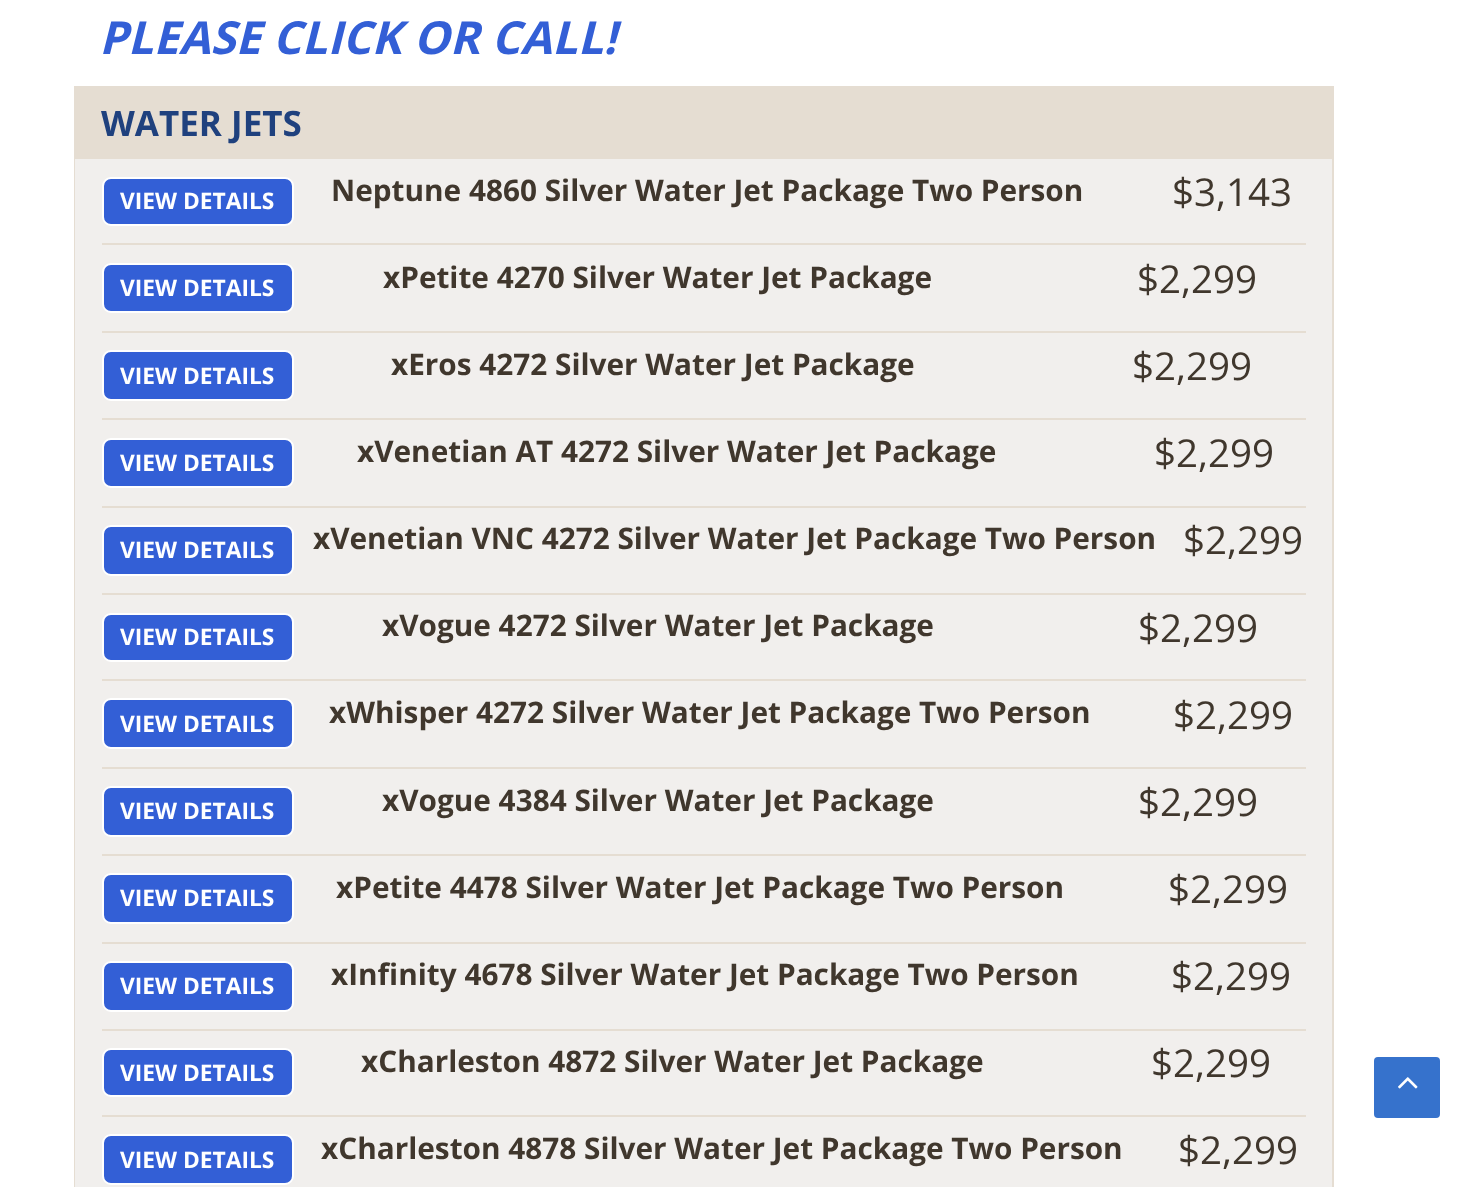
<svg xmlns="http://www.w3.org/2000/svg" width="1457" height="1187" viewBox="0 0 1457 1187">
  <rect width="100%" height="100%" fill="rgb(255,255,255)"/>
  <text x="99" y="54" font-family="Open Sans" font-size="45.5" font-weight="bold" font-style="italic" fill="rgb(51,95,214)">PLEASE CLICK OR CALL!</text>
  <rect x="75" y="87" width="1258" height="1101" fill="none" stroke="rgb(229,221,210)" stroke-width="2"/>
  <rect x="76" y="88" width="1256" height="71" fill="rgb(229,221,210)"/>
  <text x="101" y="136" font-family="Open Sans" font-size="35" font-weight="bold" fill="rgb(31,65,126)">WATER JETS</text>
  <rect x="75" y="159" width="1257" height="1028" fill="rgb(241,239,237)"/>
  <rect x="102" y="243" width="1204" height="2" fill="rgb(229,221,210)"/>
  <rect x="103" y="178" width="190" height="47" rx="8" fill="rgb(51,95,214)" stroke="rgb(255,255,255)" stroke-width="2"/>
  <text x="120" y="209" font-family="Open Sans" font-size="22.75" font-weight="bold" fill="rgb(255,255,255)">VIEW DETAILS</text>
  <text x="331" y="201" font-family="Open Sans" font-size="29.75" font-weight="bold" fill="rgb(64,55,45)">Neptune 4860 Silver Water Jet Package Two Person</text>
  <text x="1172" y="206" font-family="Open Sans" font-size="38.5" fill="rgb(64,55,45)">$3,143</text>
  <rect x="102" y="331" width="1204" height="2" fill="rgb(229,221,210)"/>
  <rect x="103" y="264" width="190" height="48" rx="8" fill="rgb(51,95,214)" stroke="rgb(255,255,255)" stroke-width="2"/>
  <text x="120" y="296" font-family="Open Sans" font-size="22.75" font-weight="bold" fill="rgb(255,255,255)">VIEW DETAILS</text>
  <text x="383" y="288" font-family="Open Sans" font-size="29.75" font-weight="bold" fill="rgb(64,55,45)">xPetite 4270 Silver Water Jet Package</text>
  <text x="1137" y="293" font-family="Open Sans" font-size="38.5" fill="rgb(64,55,45)">$2,299</text>
  <rect x="102" y="418" width="1204" height="2" fill="rgb(229,221,210)"/>
  <rect x="103" y="351" width="190" height="49" rx="8" fill="rgb(51,95,214)" stroke="rgb(255,255,255)" stroke-width="2"/>
  <text x="120" y="384" font-family="Open Sans" font-size="22.75" font-weight="bold" fill="rgb(255,255,255)">VIEW DETAILS</text>
  <text x="391" y="375" font-family="Open Sans" font-size="29.75" font-weight="bold" fill="rgb(64,55,45)">xEros 4272 Silver Water Jet Package</text>
  <text x="1132" y="380" font-family="Open Sans" font-size="38.5" fill="rgb(64,55,45)">$2,299</text>
  <rect x="102" y="506" width="1204" height="2" fill="rgb(229,221,210)"/>
  <rect x="103" y="439" width="190" height="48" rx="8" fill="rgb(51,95,214)" stroke="rgb(255,255,255)" stroke-width="2"/>
  <text x="120" y="471" font-family="Open Sans" font-size="22.75" font-weight="bold" fill="rgb(255,255,255)">VIEW DETAILS</text>
  <text x="357" y="462" font-family="Open Sans" font-size="29.75" font-weight="bold" fill="rgb(64,55,45)">xVenetian AT 4272 Silver Water Jet Package</text>
  <text x="1154" y="467" font-family="Open Sans" font-size="38.5" fill="rgb(64,55,45)">$2,299</text>
  <rect x="102" y="593" width="1204" height="2" fill="rgb(229,221,210)"/>
  <rect x="103" y="526" width="190" height="49" rx="8" fill="rgb(51,95,214)" stroke="rgb(255,255,255)" stroke-width="2"/>
  <text x="120" y="558" font-family="Open Sans" font-size="22.75" font-weight="bold" fill="rgb(255,255,255)">VIEW DETAILS</text>
  <text x="313" y="549" font-family="Open Sans" font-size="29.75" font-weight="bold" fill="rgb(64,55,45)">xVenetian VNC 4272 Silver Water Jet Package Two Person</text>
  <text x="1183" y="554" font-family="Open Sans" font-size="38.5" fill="rgb(64,55,45)">$2,299</text>
  <rect x="102" y="679" width="1204" height="2" fill="rgb(229,221,210)"/>
  <rect x="103" y="614" width="190" height="47" rx="8" fill="rgb(51,95,214)" stroke="rgb(255,255,255)" stroke-width="2"/>
  <text x="120" y="645" font-family="Open Sans" font-size="22.75" font-weight="bold" fill="rgb(255,255,255)">VIEW DETAILS</text>
  <text x="382" y="636" font-family="Open Sans" font-size="29.75" font-weight="bold" fill="rgb(64,55,45)">xVogue 4272 Silver Water Jet Package</text>
  <text x="1138" y="642" font-family="Open Sans" font-size="38.5" fill="rgb(64,55,45)">$2,299</text>
  <rect x="102" y="767" width="1204" height="2" fill="rgb(229,221,210)"/>
  <rect x="103" y="699" width="190" height="49" rx="8" fill="rgb(51,95,214)" stroke="rgb(255,255,255)" stroke-width="2"/>
  <text x="120" y="732" font-family="Open Sans" font-size="22.75" font-weight="bold" fill="rgb(255,255,255)">VIEW DETAILS</text>
  <text x="329" y="723" font-family="Open Sans" font-size="29.75" font-weight="bold" fill="rgb(64,55,45)">xWhisper 4272 Silver Water Jet Package Two Person</text>
  <text x="1173" y="729" font-family="Open Sans" font-size="38.5" fill="rgb(64,55,45)">$2,299</text>
  <rect x="102" y="854" width="1204" height="2" fill="rgb(229,221,210)"/>
  <rect x="103" y="787" width="190" height="49" rx="8" fill="rgb(51,95,214)" stroke="rgb(255,255,255)" stroke-width="2"/>
  <text x="120" y="819" font-family="Open Sans" font-size="22.75" font-weight="bold" fill="rgb(255,255,255)">VIEW DETAILS</text>
  <text x="382" y="811" font-family="Open Sans" font-size="29.75" font-weight="bold" fill="rgb(64,55,45)">xVogue 4384 Silver Water Jet Package</text>
  <text x="1138" y="816" font-family="Open Sans" font-size="38.5" fill="rgb(64,55,45)">$2,299</text>
  <rect x="102" y="942" width="1204" height="2" fill="rgb(229,221,210)"/>
  <rect x="103" y="874" width="190" height="49" rx="8" fill="rgb(51,95,214)" stroke="rgb(255,255,255)" stroke-width="2"/>
  <text x="120" y="906" font-family="Open Sans" font-size="22.75" font-weight="bold" fill="rgb(255,255,255)">VIEW DETAILS</text>
  <text x="336" y="898" font-family="Open Sans" font-size="29.75" font-weight="bold" fill="rgb(64,55,45)">xPetite 4478 Silver Water Jet Package Two Person</text>
  <text x="1168" y="903" font-family="Open Sans" font-size="38.5" fill="rgb(64,55,45)">$2,299</text>
  <rect x="102" y="1029" width="1204" height="2" fill="rgb(229,221,210)"/>
  <rect x="103" y="962" width="190" height="49" rx="8" fill="rgb(51,95,214)" stroke="rgb(255,255,255)" stroke-width="2"/>
  <text x="120" y="994" font-family="Open Sans" font-size="22.75" font-weight="bold" fill="rgb(255,255,255)">VIEW DETAILS</text>
  <text x="331" y="985" font-family="Open Sans" font-size="29.75" font-weight="bold" fill="rgb(64,55,45)">xInfinity 4678 Silver Water Jet Package Two Person</text>
  <text x="1171" y="990" font-family="Open Sans" font-size="38.5" fill="rgb(64,55,45)">$2,299</text>
  <rect x="102" y="1115" width="1204" height="2" fill="rgb(229,221,210)"/>
  <rect x="103" y="1049" width="190" height="47" rx="8" fill="rgb(51,95,214)" stroke="rgb(255,255,255)" stroke-width="2"/>
  <text x="120" y="1081" font-family="Open Sans" font-size="22.75" font-weight="bold" fill="rgb(255,255,255)">VIEW DETAILS</text>
  <text x="361" y="1072" font-family="Open Sans" font-size="29.75" font-weight="bold" fill="rgb(64,55,45)">xCharleston 4872 Silver Water Jet Package</text>
  <text x="1151" y="1077" font-family="Open Sans" font-size="38.5" fill="rgb(64,55,45)">$2,299</text>
  <rect x="103" y="1135" width="190" height="49" rx="8" fill="rgb(51,95,214)" stroke="rgb(255,255,255)" stroke-width="2"/>
  <text x="120" y="1168" font-family="Open Sans" font-size="22.75" font-weight="bold" fill="rgb(255,255,255)">VIEW DETAILS</text>
  <text x="321" y="1159" font-family="Open Sans" font-size="29.75" font-weight="bold" fill="rgb(64,55,45)">xCharleston 4878 Silver Water Jet Package Two Person</text>
  <text x="1178" y="1164" font-family="Open Sans" font-size="38.5" fill="rgb(64,55,45)">$2,299</text>
  <rect x="1374" y="1057" width="66" height="61" rx="4" fill="rgb(54,114,204)"/>
  <image x="1398" y="1077" width="20" height="12" href="pic1.png"/>
</svg>
